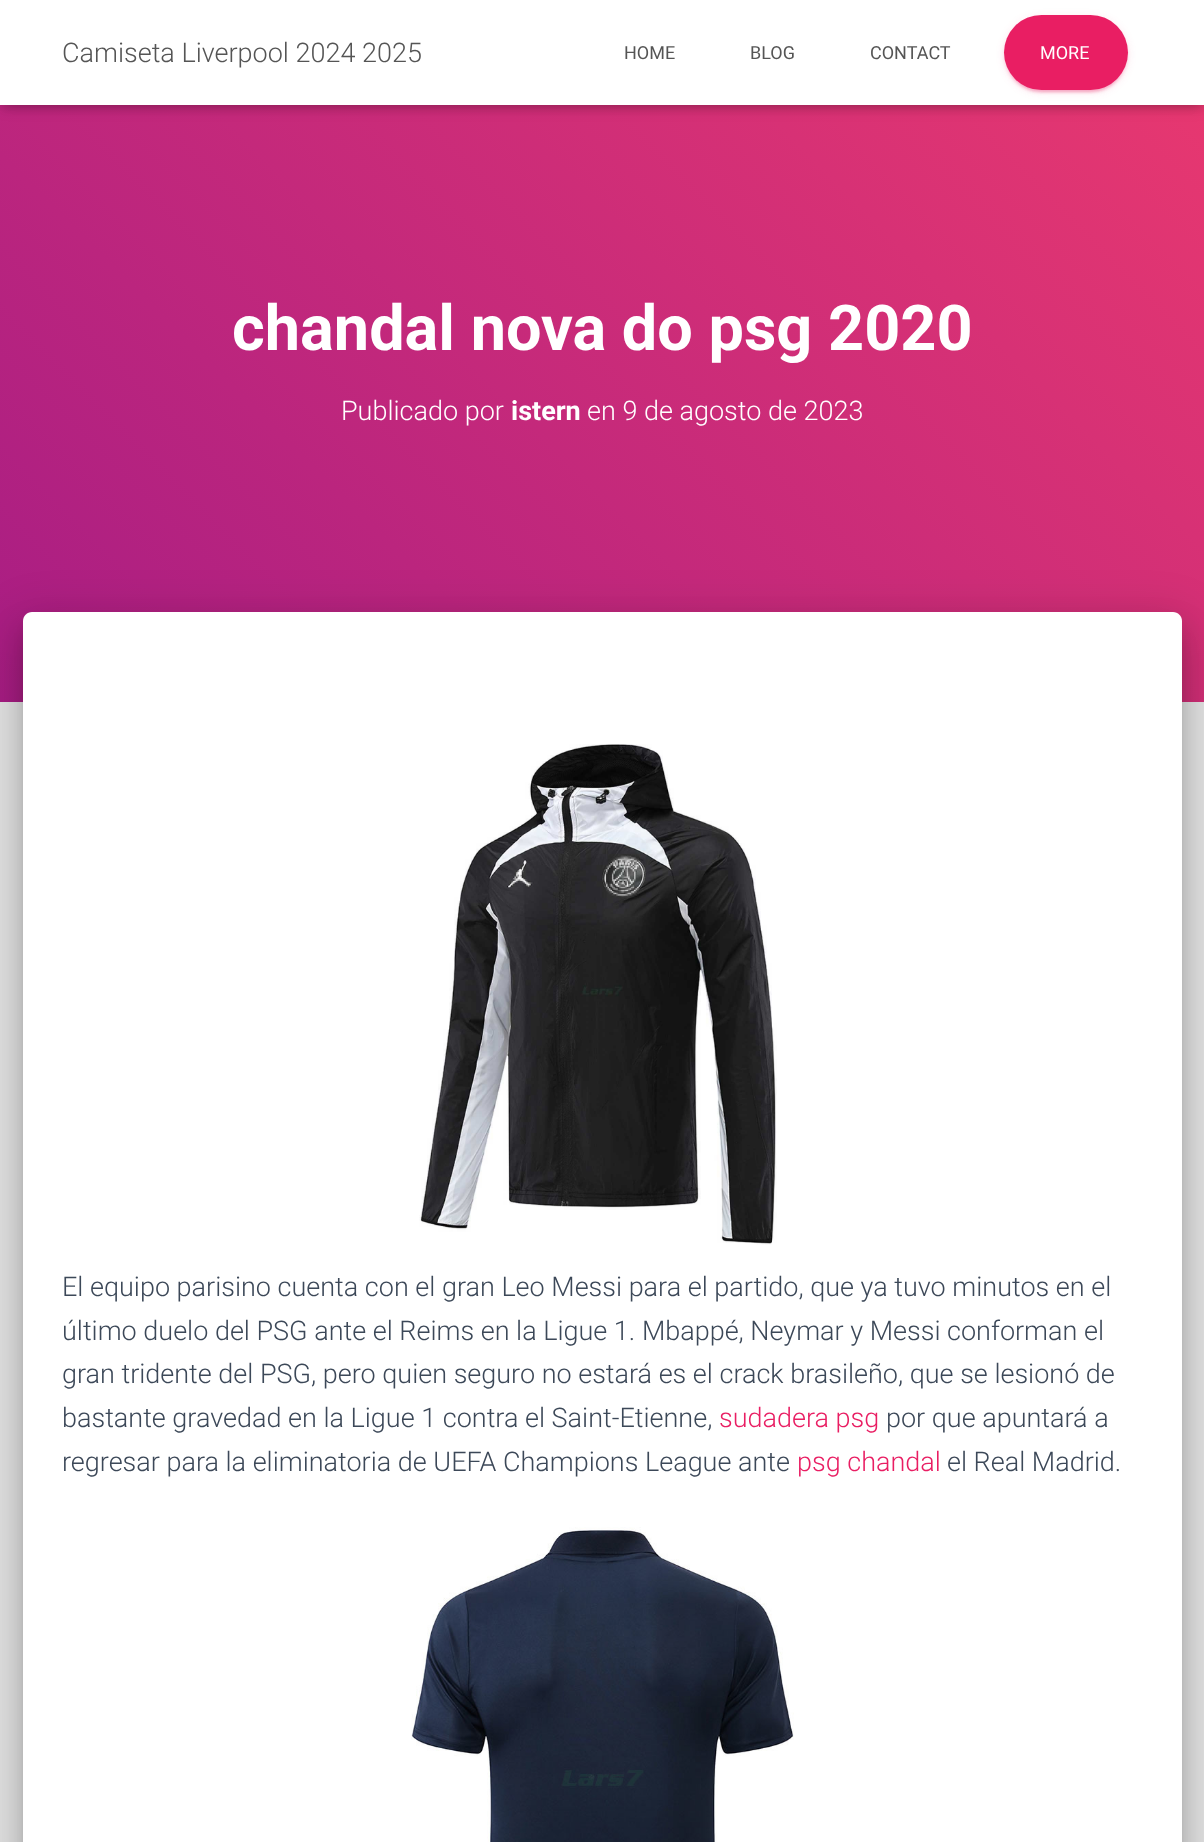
<svg xmlns="http://www.w3.org/2000/svg" width="1204" height="1842" viewBox="0 0 1204 1842">
  <defs>
    <linearGradient id="g1" gradientUnits="userSpaceOnUse" x1="126" y1="828" x2="1079" y2="-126"><stop offset="0" stop-color="rgb(168,29,132)"/><stop offset="1" stop-color="rgb(234,57,111)"/></linearGradient>
  </defs>
  <rect width="100%" height="100%" fill="rgb(229,229,229)"/>
  <rect x="0" y="105" width="1204" height="597" fill="url(#g1)"/>
  <rect x="3" y="9" width="1199" height="99" fill="rgba(0,0,0,0.1)" filter="blur(4px)"/>
  <rect x="0" y="2" width="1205" height="105" fill="rgba(0,0,0,0.12)" filter="blur(7.5px)"/>
  <rect x="9" y="11" width="1187" height="87" fill="rgba(0,0,0,0.42)" filter="blur(7.5px)"/>
  <rect x="0" y="0" width="1204" height="105" fill="rgb(255,255,255)"/>
  <text x="62" y="62" font-family="Roboto" font-size="27" font-weight="300" fill="rgb(85,85,85)">Camiseta Liverpool 2024 2025</text>
  <g font-family="Roboto" font-size="18" fill="rgb(85,85,85)">
    <text x="624" y="59">HOME</text>
    <text x="750" y="59">BLOG</text>
    <text x="870" y="59">CONTACT</text>
  </g>
  <rect x="1004" y="17" width="124" height="75" rx="37.5" fill="rgba(233,30,99,0.12)" filter="blur(4px)"/>
  <rect x="1007" y="23" width="118" height="69" rx="34.5" fill="rgba(233,30,99,0.2)" filter="blur(1px)"/>
  <rect x="1004" y="18" width="124" height="75" rx="37.5" fill="rgba(233,30,99,0.14)" filter="blur(1.5px)"/>
  <rect x="1004" y="15" width="124" height="75" rx="37.5" fill="rgb(233,30,99)"/>
  <text x="1040" y="59" font-family="Roboto" font-size="18" fill="rgb(255,255,255)">MORE</text>
  <text x="232" y="350" font-family="Roboto" font-size="63" font-weight="bold" fill="rgb(255,255,255)">chandal nova do psg 2020</text>
  <text x="341" y="420" font-family="Roboto" font-size="27" font-weight="300" fill="rgb(255,255,255)">Publicado por</text>
  <text x="511" y="420" font-family="Roboto" font-size="27" font-weight="bold" fill="rgb(255,255,255)">istern</text>
  <text x="587" y="420" font-family="Roboto" font-size="27" font-weight="300" fill="rgb(255,255,255)">en 9 de agosto de 2023</text>
  <rect x="30" y="632" width="1145" height="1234" rx="1.5" fill="rgba(0,0,0,0.2)" filter="blur(7.5px)"/>
  <rect x="15" y="614" width="1175" height="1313" rx="17" fill="rgba(0,0,0,0.12)" filter="blur(22.5px)"/>
  <rect x="20" y="633" width="1165" height="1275" rx="12" fill="rgba(0,0,0,0.14)" filter="blur(18px)"/>
  <path d="M32 612H1173C1178 612 1182 616 1182 621V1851H23V621C23 616 27 612 32 612Z" fill="rgb(255,255,255)"/>
  <image x="419" y="744" width="358" height="501" href="pic1.png"/>
  <g font-family="Roboto" font-size="27" font-weight="300" fill="rgb(60,72,88)">
    <text>
      <tspan x="62" y="1296">El equipo parisino cuenta con el gran Leo Messi para el partido, que ya tuvo minutos en el</tspan>
      <tspan x="62" y="1340">último duelo del PSG ante el Reims en la Ligue 1. Mbappé, Neymar y Messi conforman el</tspan>
      <tspan x="62" y="1383">gran tridente del PSG, pero quien seguro no estará es el crack brasileño, que se lesionó de</tspan>
      <tspan x="62" y="1427">bastante gravedad en la Ligue 1 contra el Saint-Etienne,</tspan>
    </text>
  </g>
  <text x="719" y="1427" font-family="Roboto" font-size="27" font-weight="300" fill="rgb(233,30,99)">sudadera psg</text>
  <g font-family="Roboto" font-size="27" font-weight="300" fill="rgb(60,72,88)">
    <text x="886" y="1427">por que apuntará a</text>
    <text x="62" y="1471">regresar para la eliminatoria de UEFA Champions League ante</text>
  </g>
  <text x="797" y="1471" font-family="Roboto" font-size="27" font-weight="300" fill="rgb(233,30,99)">psg chandal</text>
  <text x="947" y="1471" font-family="Roboto" font-size="27" font-weight="300" fill="rgb(60,72,88)">el Real Madrid.</text>
  <image x="411" y="1527" width="383" height="315" href="pic2.png"/>
</svg>
